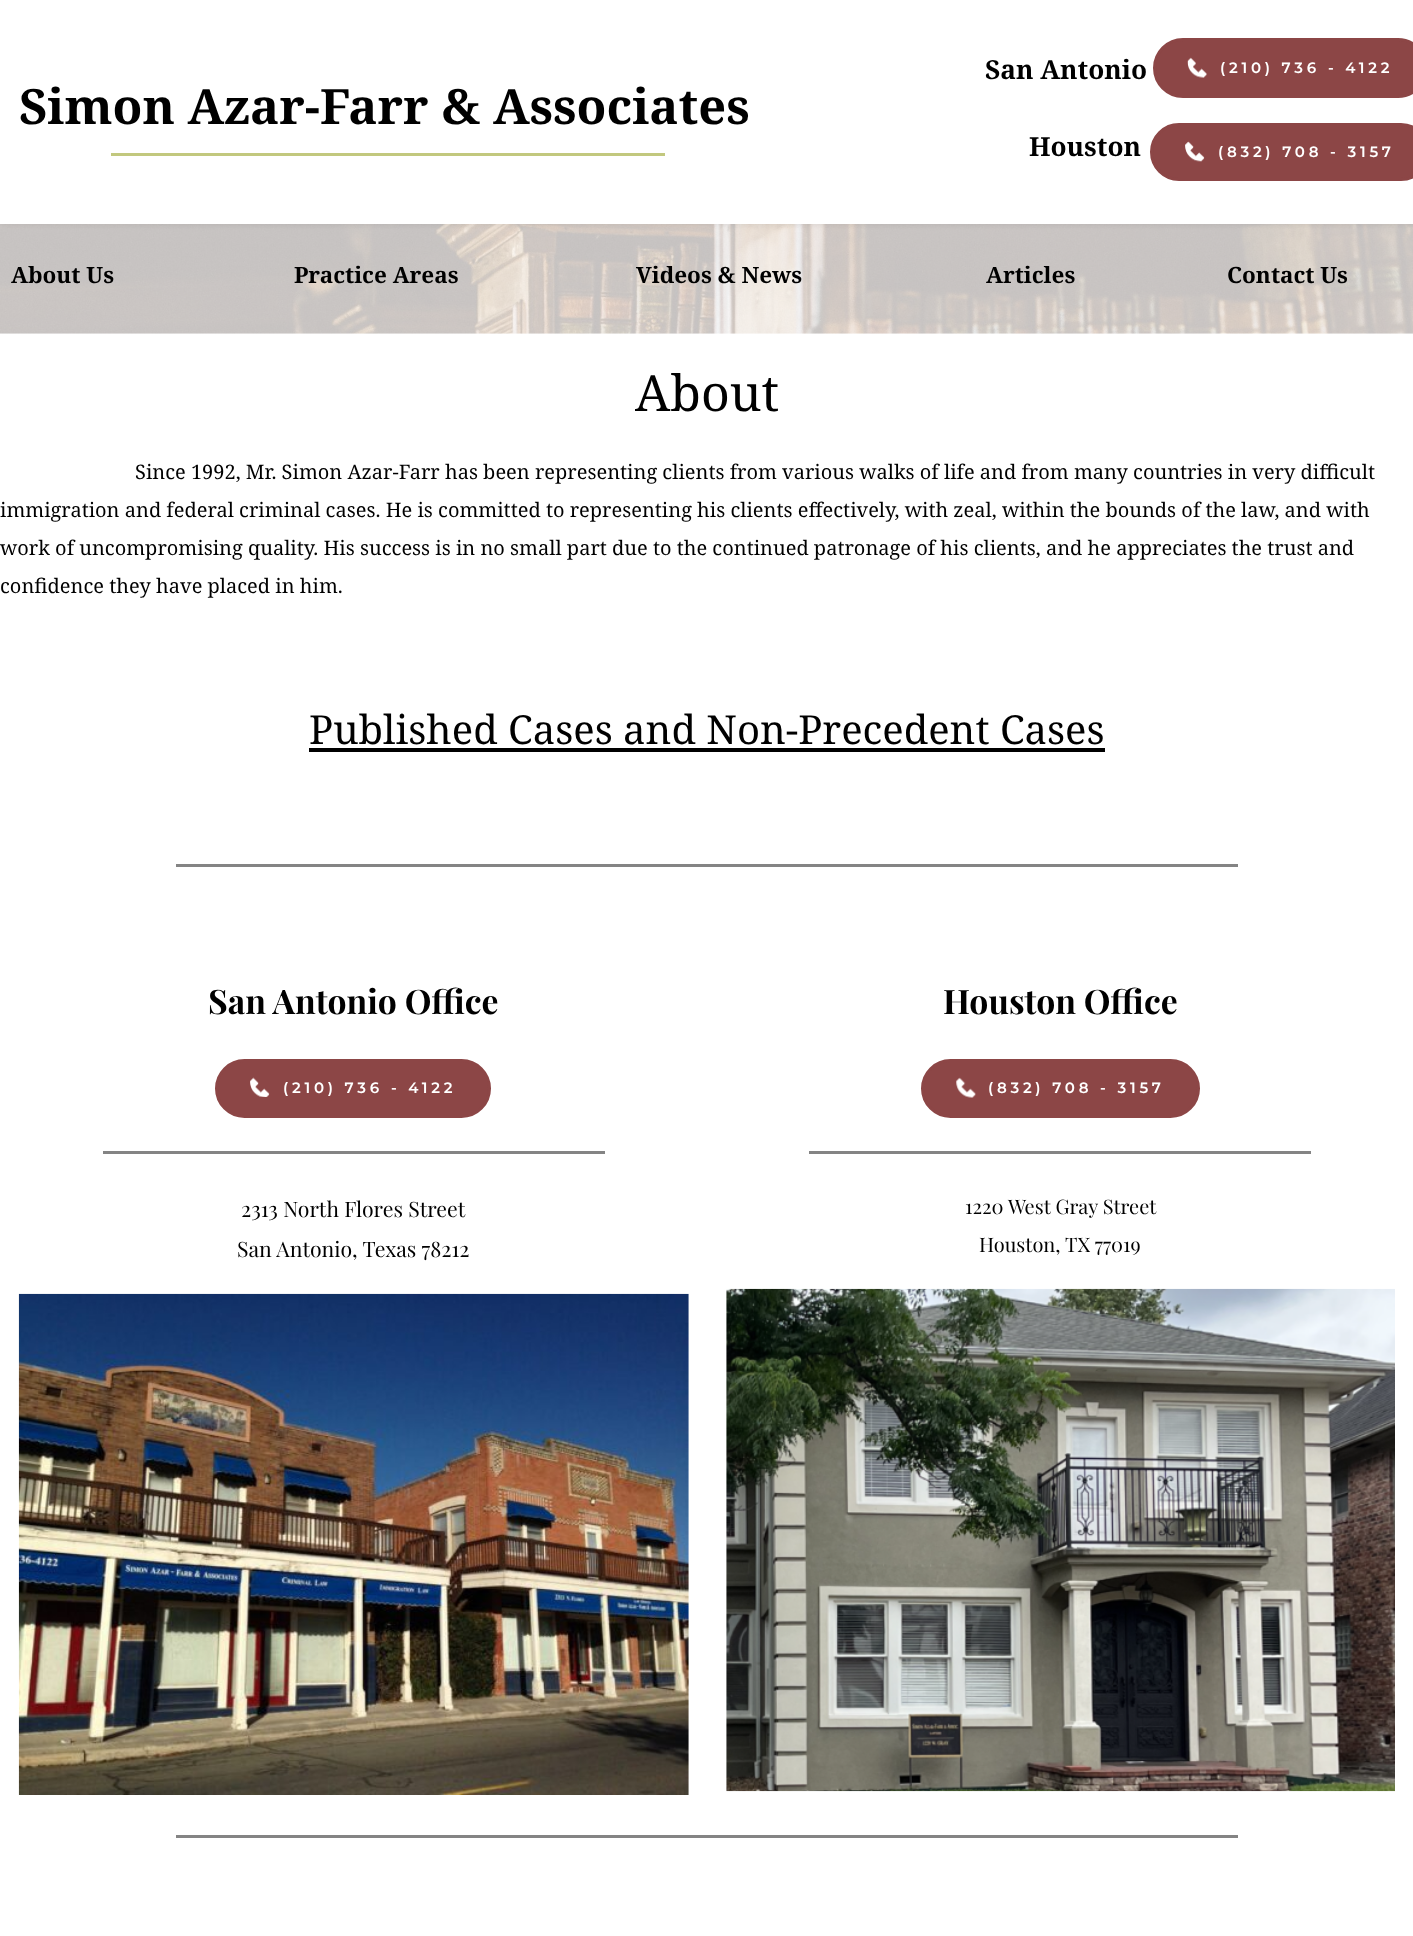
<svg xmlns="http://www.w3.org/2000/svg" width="1413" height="1936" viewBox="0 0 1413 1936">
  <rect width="100%" height="100%" fill="rgb(255,255,255)"/>
  <image x="0" y="224" width="1413" height="110" href="pic3.png"/>
  <rect x="0" y="0" width="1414" height="224" fill="rgba(0,0,0,0.1)" filter="blur(3px)"/>
  <rect x="0" y="0" width="1413" height="224" fill="rgb(255,255,255)"/>
  <text x="19" y="124" font-family="Noto Serif" font-size="48.75" font-weight="bold" fill="rgb(0,0,0)">Simon Azar-Farr &amp; Associates</text>
  <rect x="111" y="153" width="554" height="3" fill="rgb(194,200,126)"/>
  <g font-family="Noto Serif" font-size="26.25" font-weight="bold" fill="rgb(0,0,0)">
    <text x="985" y="79">San Antonio</text>
    <text x="1029" y="156">Houston</text>
  </g>
  <rect x="1154.5" y="39.5" width="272" height="57" rx="28.5" fill="rgb(140,70,70)" stroke="rgb(140,70,70)" stroke-width="3"/>
  <image x="1187" y="57" width="20" height="21" href="pic1.png"/>
  <text x="1220" y="73" font-family="Montserrat" font-size="15" font-weight="100" letter-spacing="3.75" fill="rgb(255,255,255)">(210) 736 - 4122</text>
  <rect x="1151.5" y="124.5" width="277" height="55" rx="27.5" fill="rgb(140,70,70)" stroke="rgb(140,70,70)" stroke-width="3"/>
  <image x="1185" y="141" width="20" height="21" href="pic2.png"/>
  <text x="1218" y="157" font-family="Montserrat" font-size="15" font-weight="100" letter-spacing="3.75" fill="rgb(255,255,255)">(832) 708 - 3157</text>
  <g font-family="Noto Serif" font-size="22.5" font-weight="bold" fill="rgb(0,0,0)">
    <text x="11" y="283">About Us</text>
    <text x="294" y="283">Practice Areas</text>
    <text x="636" y="283">Videos &amp; News</text>
    <text x="986" y="283">Articles</text>
    <text x="1227" y="283">Contact Us</text>
  </g>
  <text x="635" y="411" font-family="Noto Serif" font-size="50" fill="rgb(0,0,0)">About</text>
  <g font-family="Noto Serif" font-size="20" fill="rgb(0,0,0)">
    <text x="135" y="479">Since 1992, Mr. Simon Azar-Farr has been representing clients from various walks of life and from many countries in very difficult</text>
    <text>
      <tspan x="0" y="517">immigration and federal criminal cases. He is committed to representing his clients effectively, with zeal, within the bounds of the law, and with</tspan>
      <tspan x="0" y="555">work of uncompromising quality. His success is in no small part due to the continued patronage of his clients, and he appreciates the trust and</tspan>
      <tspan x="0" y="593">confidence they have placed in him.</tspan>
    </text>
  </g>
  <text x="309" y="744" font-family="Noto Serif" font-size="40" fill="rgb(0,0,0)">Published Cases and Non-Precedent Cases</text>
  <rect x="309" y="748" width="796" height="4" fill="rgb(0,0,0)"/>
  <rect x="176" y="864" width="1062" height="3" fill="rgb(132,132,132)"/>
  <text x="208" y="1014" font-family="Playfair Display" font-size="33.75" font-weight="bold" fill="rgb(0,0,0)">San Antonio Office</text>
  <rect x="216.5" y="1060.5" width="273" height="56" rx="28" fill="rgb(140,70,70)" stroke="rgb(140,70,70)" stroke-width="3"/>
  <image x="250" y="1077" width="20" height="20" href="pic4.png"/>
  <text x="283" y="1093" font-family="Montserrat" font-size="15" font-weight="100" letter-spacing="3.75" fill="rgb(255,255,255)">(210) 736 - 4122</text>
  <rect x="103" y="1151" width="502" height="3" fill="rgb(132,132,132)"/>
  <g font-family="Playfair Display" font-size="21.25" fill="rgb(0,0,0)">
    <text x="241" y="1217">2313 North Flores Street</text>
    <text x="237" y="1257">San Antonio, Texas 78212</text>
  </g>
  <image x="18" y="1293" width="671" height="502" href="pic5.png"/>
  <text x="943" y="1014" font-family="Playfair Display" font-size="33.75" font-weight="bold" fill="rgb(0,0,0)">Houston Office</text>
  <rect x="922.5" y="1060.5" width="276" height="56" rx="28" fill="rgb(140,70,70)" stroke="rgb(140,70,70)" stroke-width="3"/>
  <image x="956" y="1077" width="20" height="21" href="pic6.png"/>
  <text x="988" y="1093" font-family="Montserrat" font-size="15" font-weight="100" letter-spacing="3.75" fill="rgb(255,255,255)">(832) 708 - 3157</text>
  <rect x="809" y="1151" width="502" height="3" fill="rgb(132,132,132)"/>
  <g font-family="Playfair Display" font-size="20" fill="rgb(0,0,0)">
    <text x="965" y="1214">1220 West Gray Street</text>
    <text x="979" y="1252">Houston, TX 77019</text>
  </g>
  <image x="726" y="1288" width="669" height="504" href="pic7.png"/>
  <rect x="176" y="1835" width="1062" height="3" fill="rgb(132,132,132)"/>
</svg>
